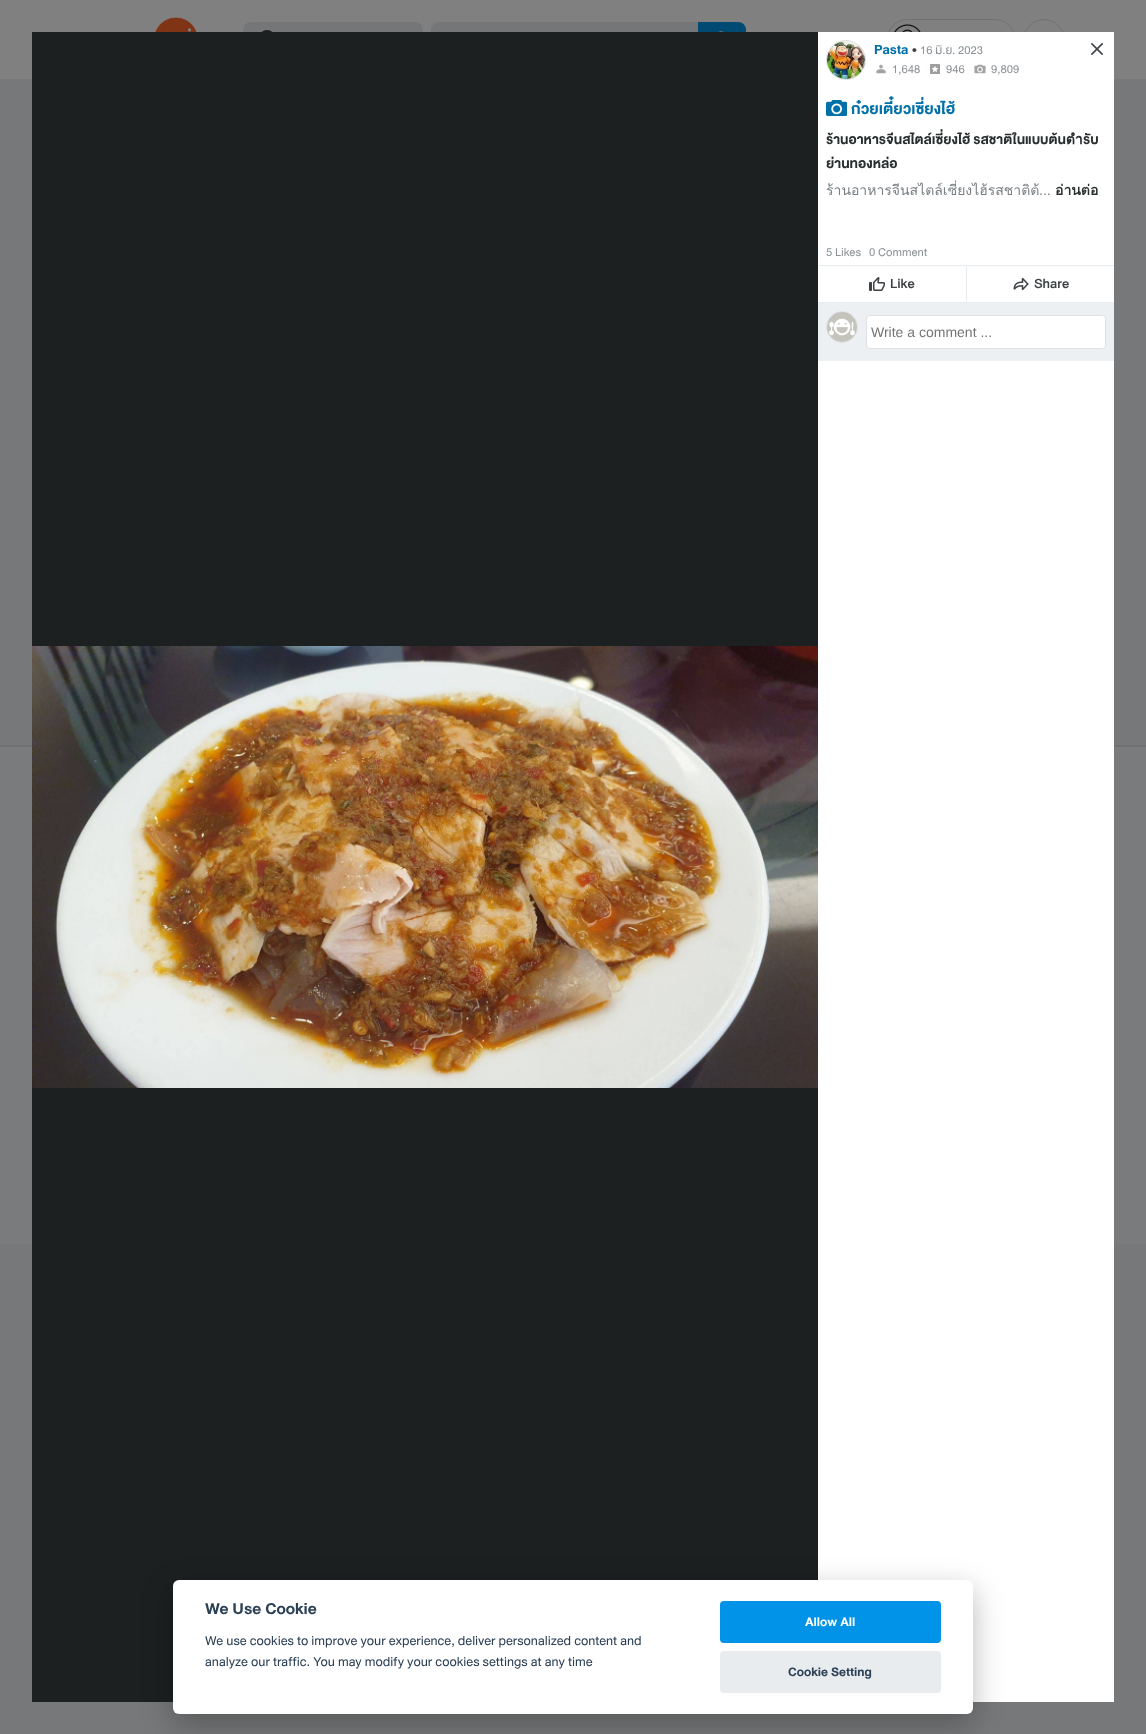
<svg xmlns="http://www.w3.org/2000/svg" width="1146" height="1734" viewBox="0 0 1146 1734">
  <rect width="100%" height="100%" fill="rgb(119,120,121)"/>
  <rect x="0" y="0" width="1146" height="79" fill="rgb(128,128,128)"/>
  <image x="155" y="17" width="42" height="15" href="pic1.png"/>
  <rect x="243" y="22" width="180" height="36" rx="8" fill="rgb(117,118,119)"/>
  <image x="261" y="30" width="12" height="2" href="pic2.png"/>
  <path d="M439 22H698V58H439C434.5 58 431 54.5 431 50V30C431 25.5 434.5 22 439 22Z" fill="rgb(117,118,119)"/>
  <path d="M698 22H738C742.5 22 746 25.5 746 30V50C746 54.5 742.5 58 738 58H698Z" fill="rgb(0,74,116)"/>
  <image x="718" y="31" width="6" height="1" href="pic3.png"/>
  <rect x="887.5" y="19.5" width="127" height="41" rx="19.5" fill="none" stroke="rgb(111,113,114)"/>
  <image x="894" y="24" width="27" height="8" href="pic4.png"/>
  <circle cx="1044" cy="40" r="20.5" fill="none" stroke="rgb(111,113,114)"/>
  <rect x="0" y="747" width="1146" height="497" fill="rgb(122,123,124)"/>
  <rect x="0" y="745" width="1146" height="2" fill="rgb(111,113,114)"/>
  <rect x="818" y="32" width="296" height="1670" fill="rgb(255,255,255)"/>
  <rect x="32" y="32" width="786" height="1670" fill="rgb(29,32,33)"/>
  <image x="32" y="646" width="786" height="442" href="pic5.png"/>
  <image x="1091" y="43" width="12" height="12" href="pic6.png"/>
  <circle cx="846" cy="60" r="19.5" fill="rgb(237,240,242)" stroke="rgb(222,226,228)"/>
  <image x="827" y="41" width="38" height="38" href="pic7.png"/>
  <text x="874" y="54" font-family="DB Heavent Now" font-size="14" font-weight="bold" fill="rgb(0,112,168)">Pasta</text>
  <text x="912" y="54" font-family="DB Heavent Now" font-size="14" fill="rgb(61,66,69)">•</text>
  <text x="920" y="54" font-family="DB Heavent Now" font-size="12" fill="rgb(140,147,150)">16 มิ.ย. 2023</text>
  <image x="876" y="64" width="10" height="10" href="pic8.png"/>
  <text x="892" y="73" font-family="DB Heavent Now" font-size="12" fill="rgb(140,147,150)">1,648</text>
  <image x="930" y="64" width="10" height="10" href="pic9.png"/>
  <text x="946" y="73" font-family="DB Heavent Now" font-size="12" fill="rgb(140,147,150)">946</text>
  <image x="974" y="64" width="12" height="10" href="pic10.png"/>
  <text x="991" y="73" font-family="DB Heavent Now" font-size="12" fill="rgb(140,147,150)">9,809</text>
  <image x="826" y="100" width="21" height="16" href="pic11.png"/>
  <text x="851" y="114" font-family="DB Heavent Now" font-size="16" font-weight="bold" fill="rgb(0,112,168)">ก๋วยเตี๋ยวเซี่ยงไฮ้</text>
  <g font-family="DB Heavent Now" font-size="14" font-weight="bold" fill="rgb(40,45,46)">
    <text>
      <tspan x="826" y="144">ร้านอาหารจีนสไตล์เซี่ยงไฮ้ รสชาติในแบบต้นตำรับ</tspan>
      <tspan x="826" y="168">ย่านทองหล่อ</tspan>
    </text>
  </g>
  <text x="826" y="195" font-family="Loma" font-size="14" fill="rgb(120,127,131)">ร้านอาหารจีนสไตล์เซี่ยงไฮ้รสชาติต้</text>
  <text x="1039" y="195" font-family="Liberation Sans" font-size="14" fill="rgb(120,127,131)">...</text>
  <text x="1055" y="195" font-family="Loma" font-size="14" font-weight="bold" fill="rgb(40,45,46)">อ่านต่อ</text>
  <g font-family="DB Heavent Now" font-size="12" fill="rgb(140,147,150)">
    <text x="826" y="256">5 Likes</text>
    <text x="869" y="256">0 Comment</text>
  </g>
  <rect x="818" y="265" width="296" height="38" fill="rgb(233,236,238)"/>
  <rect x="818" y="266" width="148" height="36" fill="rgb(255,255,255)"/>
  <image x="869" y="277" width="16" height="14" href="pic12.png"/>
  <text x="890" y="288" font-family="DB Heavent Now" font-size="14" font-weight="500" fill="rgb(61,66,69)">Like</text>
  <rect x="967" y="266" width="147" height="36" fill="rgb(255,255,255)"/>
  <image x="1013" y="277" width="16" height="14" href="pic13.png"/>
  <text x="1034" y="288" font-family="DB Heavent Now" font-size="14" font-weight="500" fill="rgb(61,66,69)">Share</text>
  <rect x="818" y="303" width="296" height="58" fill="rgb(237,240,242)"/>
  <circle cx="842" cy="327" r="15.5" fill="none" stroke="rgb(222,226,228)"/>
  <image x="827" y="312" width="30" height="30" href="pic14.png"/>
  <rect x="866.5" y="315.5" width="239" height="33" rx="3.5" fill="rgb(255,255,255)" stroke="rgb(222,226,228)"/>
  <text x="871" y="337" font-family="Liberation Sans" font-size="14" fill="rgb(117,117,117)">Write a comment ...</text>
  <rect x="173" y="1590" width="800" height="134" rx="6" fill="rgba(2,2,3,0.28)" filter="blur(15px)"/>
  <rect x="173" y="1580" width="800" height="134" rx="6" fill="rgb(255,255,255)"/>
  <text x="205" y="1614" font-family="DB Heavent Now" font-size="16.75" font-weight="bold" fill="rgb(45,65,86)">We Use Cookie</text>
  <g font-family="DB Heavent Now" font-size="13.6" fill="rgb(45,65,86)">
    <text>
      <tspan x="205" y="1645">We use cookies to improve your experience, deliver personalized content and</tspan>
      <tspan x="205" y="1666">analyze our traffic. You may modify your cookies settings at any time</tspan>
    </text>
  </g>
  <rect x="720" y="1601" width="221" height="42" rx="4" fill="rgb(0,147,232)"/>
  <text x="805" y="1626" font-family="DB Heavent Now" font-size="13" font-weight="bold" fill="rgb(255,255,255)">Allow All</text>
  <rect x="720" y="1651" width="221" height="42" rx="4" fill="rgb(233,236,238)"/>
  <text x="788" y="1676" font-family="DB Heavent Now" font-size="13" font-weight="bold" fill="rgb(45,65,86)">Cookie Setting</text>
</svg>
